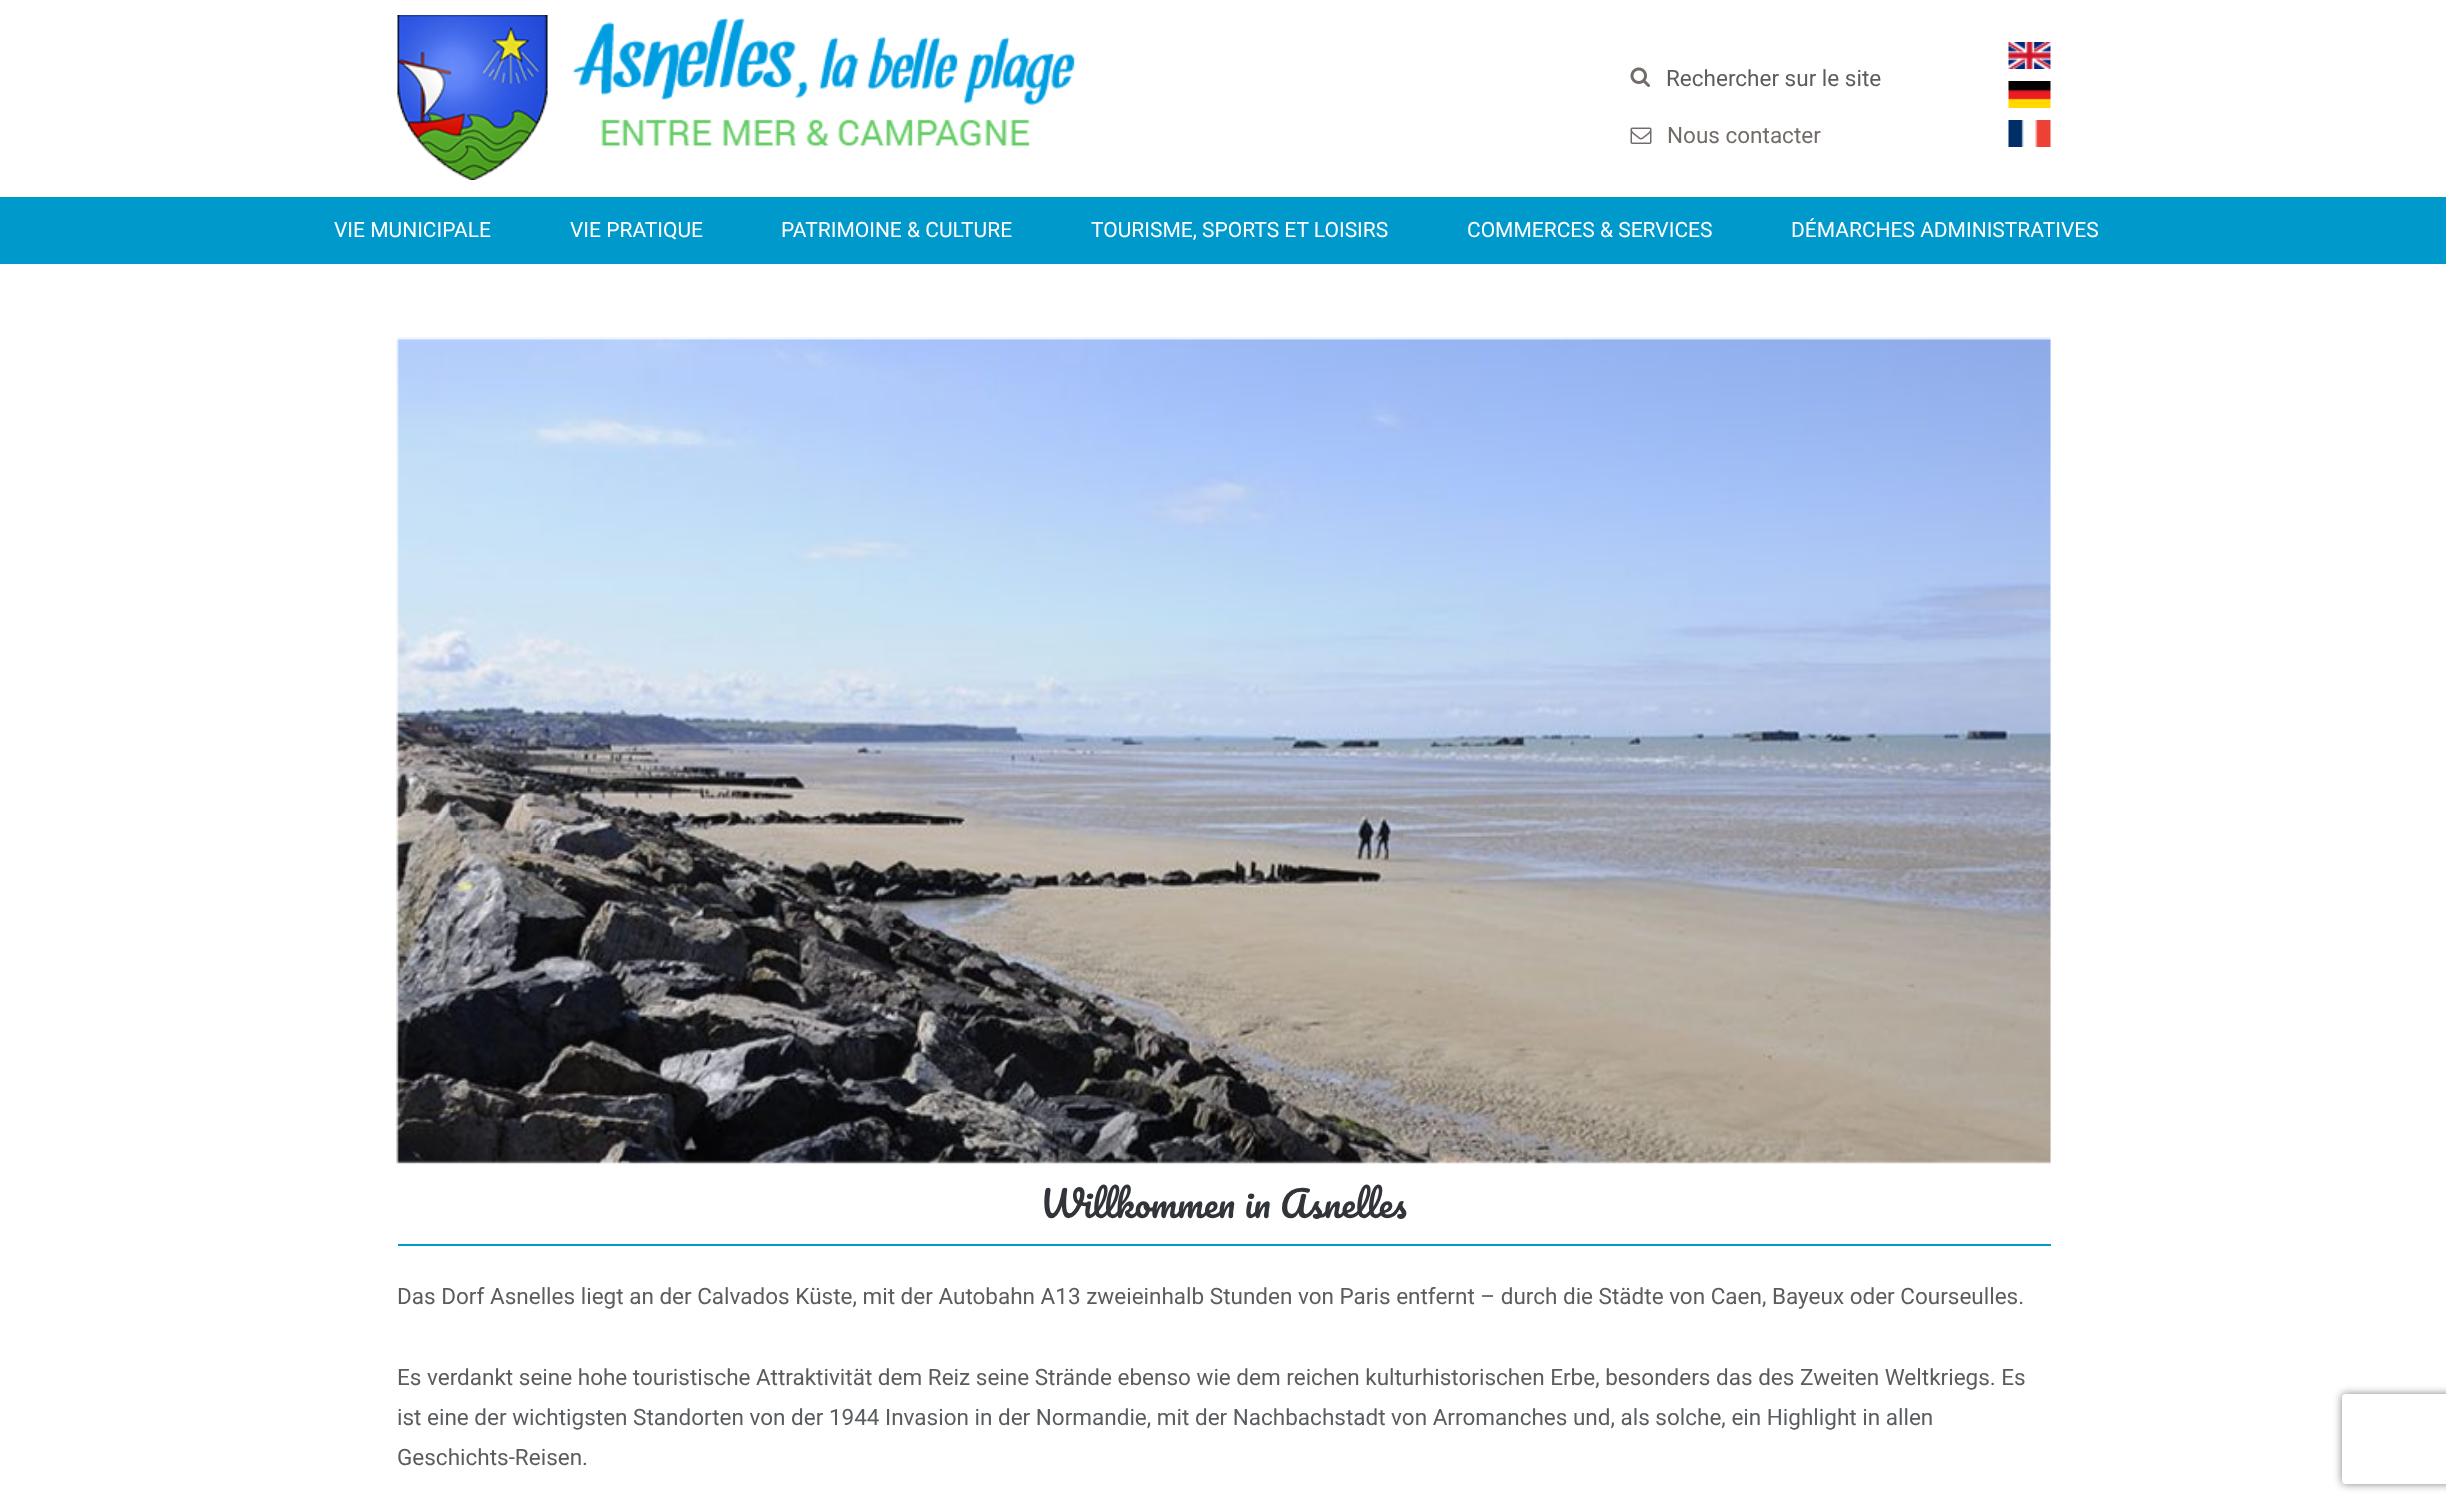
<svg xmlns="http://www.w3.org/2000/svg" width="2446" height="1504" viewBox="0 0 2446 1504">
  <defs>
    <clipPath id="clip1"><path d="M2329 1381H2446V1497H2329ZM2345 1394H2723C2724.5 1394 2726 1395.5 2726 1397V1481C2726 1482.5 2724.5 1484 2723 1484H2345C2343.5 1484 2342 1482.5 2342 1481V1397C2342 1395.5 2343.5 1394 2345 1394Z" clip-rule="evenodd"/></clipPath>
  </defs>
  <rect width="100%" height="100%" fill="rgb(255,255,255)"/>
  <image x="397" y="15" width="151" height="165" href="pic1.png"/>
  <image x="572" y="17" width="503" height="129" href="pic2.png"/>
  <image x="1630" y="67" width="20" height="20" href="pic3.png"/>
  <text x="1666" y="86" font-family="Roboto" font-size="22.5" fill="rgb(90,93,96)">Rechercher sur le site</text>
  <image x="1630" y="127" width="22" height="17" href="pic4.png"/>
  <text x="1667" y="143" font-family="Roboto" font-size="22.5" fill="rgb(113,108,106)">Nous contacter</text>
  <image x="2008" y="42" width="43" height="27" href="pic5.png"/>
  <image x="2008" y="81" width="43" height="27" href="pic6.png"/>
  <image x="2008" y="120" width="43" height="27" href="pic7.png"/>
  <rect x="0" y="197" width="2446" height="67" fill="rgb(0,153,204)"/>
  <g font-family="Roboto" font-size="21" fill="rgb(255,255,255)">
    <text x="334" y="237">VIE MUNICIPALE</text>
    <text x="570" y="237">VIE PRATIQUE</text>
    <text x="781" y="237">PATRIMOINE &amp; CULTURE</text>
    <text x="1091" y="237">TOURISME, SPORTS ET LOISIRS</text>
    <text x="1467" y="237">COMMERCES &amp; SERVICES</text>
    <text x="1791" y="237">DÉMARCHES ADMINISTRATIVES</text>
  </g>
  <image x="396" y="337" width="1655" height="827" href="pic8.png"/>
  <rect x="398" y="1244" width="1653" height="2" fill="rgb(0,153,204)"/>
  <text x="1040" y="1218" font-family="Pacifico" font-size="35.75" fill="rgb(49,53,57)">Willkommen in Asnelles</text>
  <g font-family="Roboto" font-size="22.5" fill="rgb(90,93,96)">
    <text x="397" y="1304">Das Dorf Asnelles liegt an der Calvados Küste, mit der Autobahn A13 zweieinhalb Stunden von Paris entfernt – durch die Städte von Caen, Bayeux oder Courseulles.</text>
    <text>
      <tspan x="397" y="1385">Es verdankt seine hohe touristische Attraktivität dem Reiz seine Strände ebenso wie dem reichen kulturhistorischen Erbe, besonders das des Zweiten Weltkriegs. Es</tspan>
      <tspan x="397" y="1425">ist eine der wichtigsten Standorten von der 1944 Invasion in der Normandie, mit der Nachbachstadt von Arromanches und, als solche, ein Highlight in allen</tspan>
      <tspan x="397" y="1465">Geschichts-Reisen.</tspan>
    </text>
  </g>
  <g clip-path="url(#clip1)">
    <rect x="2342" y="1394" width="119" height="90" rx="3" fill="rgb(128,128,128)" filter="blur(4px)"/>
  </g>
</svg>
